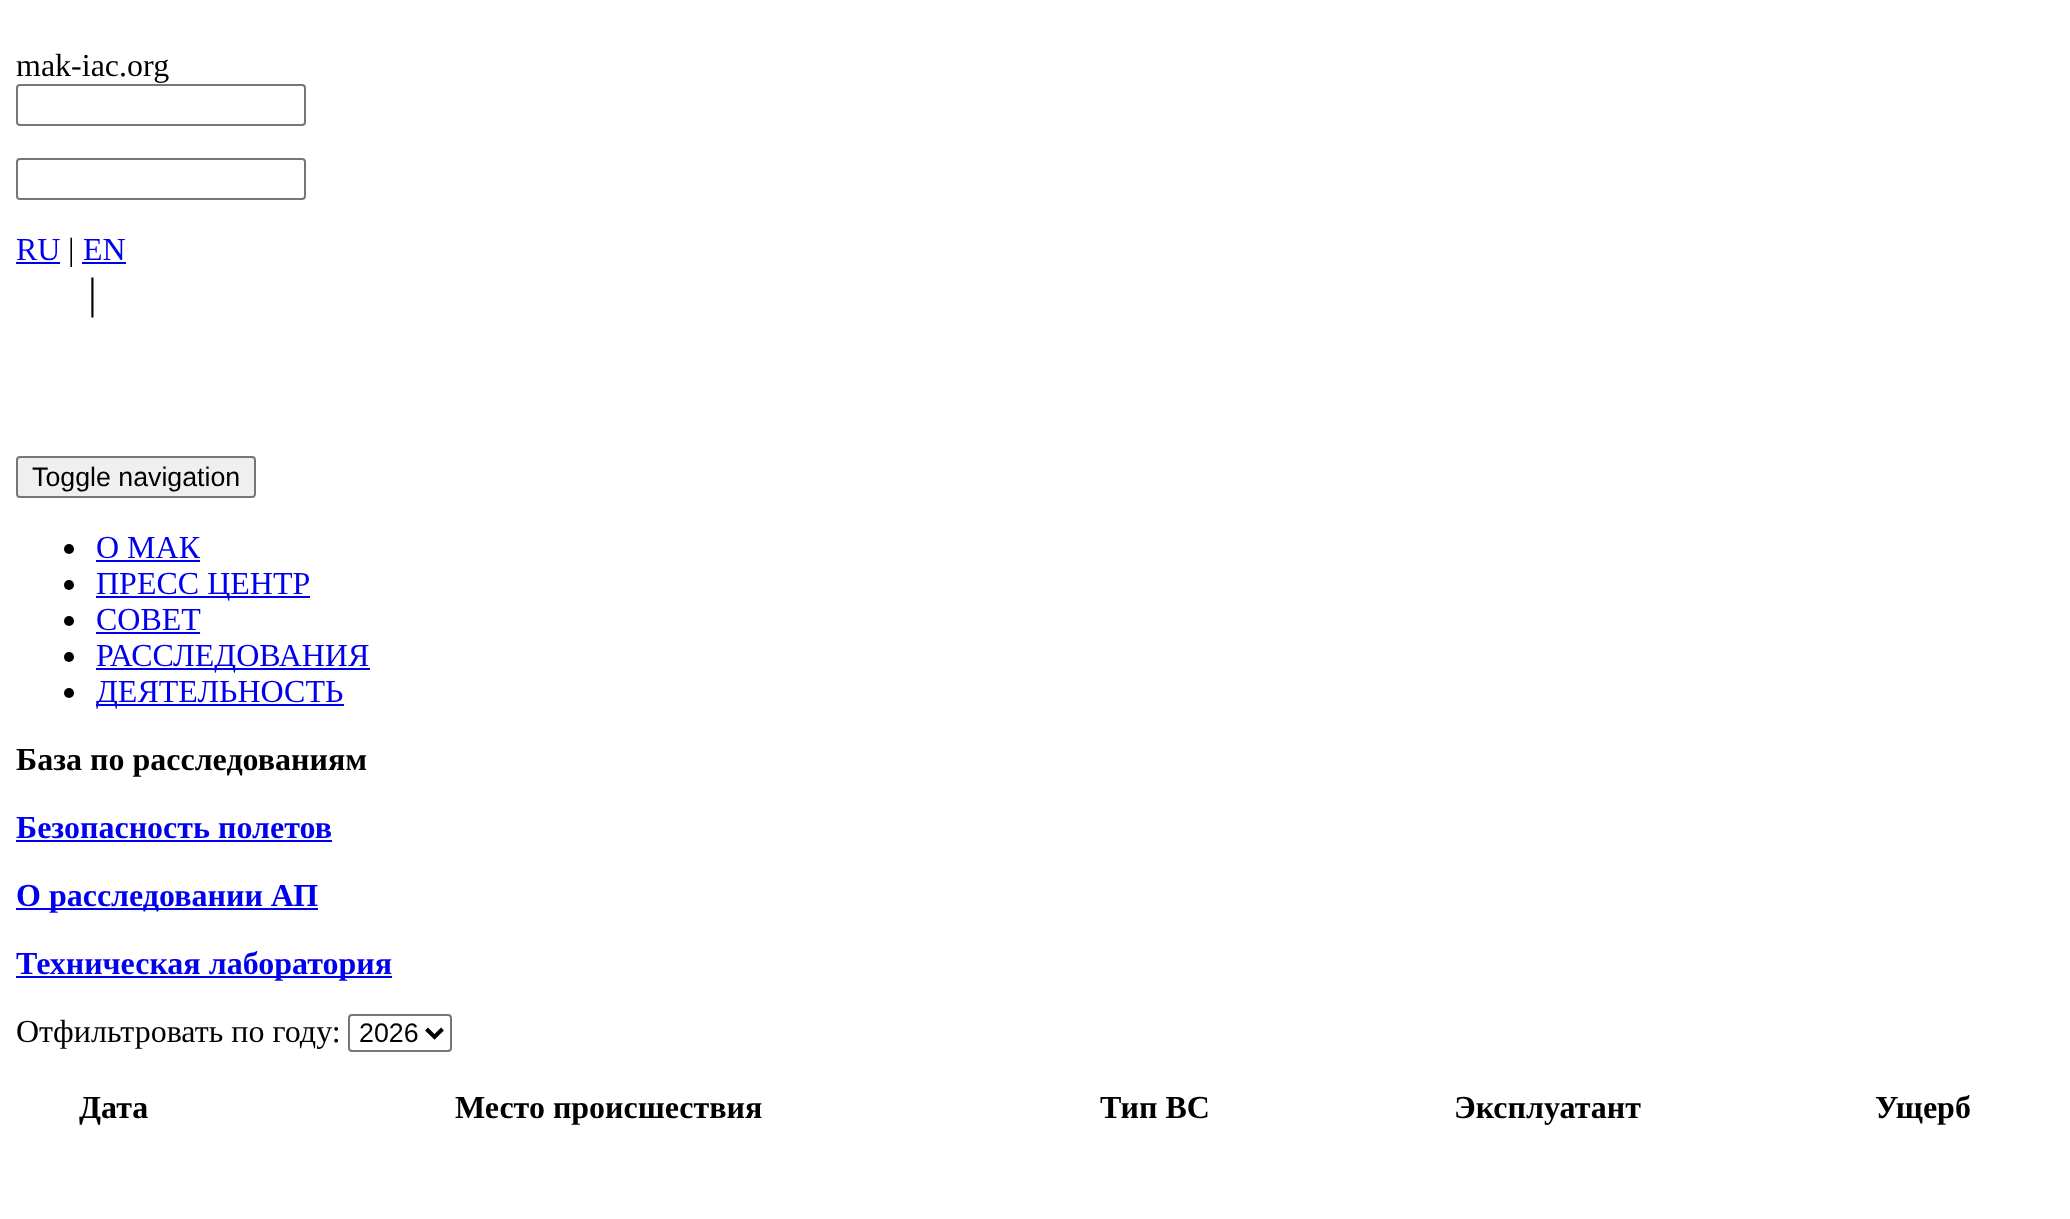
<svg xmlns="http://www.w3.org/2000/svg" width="2070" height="1219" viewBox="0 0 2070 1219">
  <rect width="100%" height="100%" fill="rgb(255,255,255)"/>
  <text x="16" y="76" font-family="Liberation Serif" font-size="32" fill="rgb(0,0,0)">mak-iac.org</text>
  <rect x="17" y="85" width="288" height="40" rx="3" fill="none" stroke="rgb(118,118,118)" stroke-width="2"/>
  <rect x="17" y="159" width="288" height="40" rx="3" fill="none" stroke="rgb(118,118,118)" stroke-width="2"/>
  <text x="16" y="260" font-family="Liberation Serif" font-size="32" fill="rgb(0,0,238)">RU</text>
  <rect x="16" y="262" width="44" height="2" fill="rgb(0,0,238)"/>
  <text x="68" y="260" font-family="Liberation Serif" font-size="32" fill="rgb(0,0,0)">|</text>
  <text x="83" y="260" font-family="Liberation Serif" font-size="32" fill="rgb(0,0,238)">EN</text>
  <rect x="82" y="262" width="44" height="2" fill="rgb(0,0,238)"/>
  <text x="88" y="308" font-family="Liberation Serif" font-size="44" fill="rgb(0,0,0)">|</text>
  <rect x="17" y="457" width="238" height="40" rx="3" fill="rgb(239,239,239)" stroke="rgb(118,118,118)" stroke-width="2"/>
  <text x="32" y="486" font-family="Liberation Sans" font-size="26.75" fill="rgb(0,0,0)">Toggle navigation</text>
  <circle cx="69" cy="549" r="5" fill="rgb(0,0,0)"/>
  <text x="96" y="558" font-family="Liberation Serif" font-size="32" fill="rgb(0,0,238)">О МАК</text>
  <rect x="96" y="560" width="104" height="2" fill="rgb(0,0,238)"/>
  <circle cx="69" cy="585" r="5" fill="rgb(0,0,0)"/>
  <rect x="96" y="596" width="214" height="2" fill="rgb(0,0,238)"/>
  <text x="96" y="594" font-family="Liberation Serif" font-size="32" fill="rgb(0,0,238)">ПРЕСС ЦЕНТР</text>
  <circle cx="69" cy="621" r="5" fill="rgb(0,0,0)"/>
  <text x="96" y="630" font-family="Liberation Serif" font-size="32" fill="rgb(0,0,238)">СОВЕТ</text>
  <rect x="96" y="632" width="104" height="2" fill="rgb(0,0,238)"/>
  <circle cx="69" cy="657" r="5" fill="rgb(0,0,0)"/>
  <rect x="96" y="668" width="274" height="2" fill="rgb(0,0,238)"/>
  <text x="96" y="666" font-family="Liberation Serif" font-size="32" fill="rgb(0,0,238)">РАССЛЕДОВАНИЯ</text>
  <circle cx="69" cy="693" r="5" fill="rgb(0,0,0)"/>
  <rect x="96" y="704" width="248" height="2" fill="rgb(0,0,238)"/>
  <text x="96" y="702" font-family="Liberation Serif" font-size="32" fill="rgb(0,0,238)">ДЕЯТЕЛЬНОСТЬ</text>
  <text x="16" y="770" font-family="Liberation Serif" font-size="32" font-weight="bold" fill="rgb(0,0,0)">База по расследованиям</text>
  <text x="16" y="838" font-family="Liberation Serif" font-size="32" font-weight="bold" fill="rgb(0,0,238)">Безопасность полетов</text>
  <rect x="16" y="840" width="316" height="2" fill="rgb(0,0,238)"/>
  <rect x="16" y="908" width="302" height="2" fill="rgb(0,0,238)"/>
  <text x="16" y="906" font-family="Liberation Serif" font-size="32" font-weight="bold" fill="rgb(0,0,238)">О расследовании АП</text>
  <rect x="16" y="976" width="376" height="2" fill="rgb(0,0,238)"/>
  <text x="16" y="974" font-family="Liberation Serif" font-size="32" font-weight="bold" fill="rgb(0,0,238)">Техническая лаборатория</text>
  <text x="16" y="1042" font-family="Liberation Serif" font-size="32" fill="rgb(0,0,0)">Отфильтровать по году:</text>
  <rect x="349" y="1015" width="102" height="36" rx="3" fill="none" stroke="rgb(118,118,118)" stroke-width="2"/>
  <path d="M426.5 1029L434.5 1037L442.5 1029" fill="none" stroke="rgb(0,0,0)" stroke-width="4"/>
  <text x="359" y="1042" font-family="Liberation Sans" font-size="26.75" fill="rgb(0,0,0)">2026</text>
  <g font-family="Liberation Serif" font-size="32" font-weight="bold" fill="rgb(0,0,0)">
    <text x="79" y="1118">Дата</text>
    <text x="455" y="1118">Место происшествия</text>
    <text x="1100" y="1118">Тип ВС</text>
    <text x="1454" y="1118">Эксплуатант</text>
    <text x="1875" y="1118">Ущерб</text>
  </g>
</svg>
